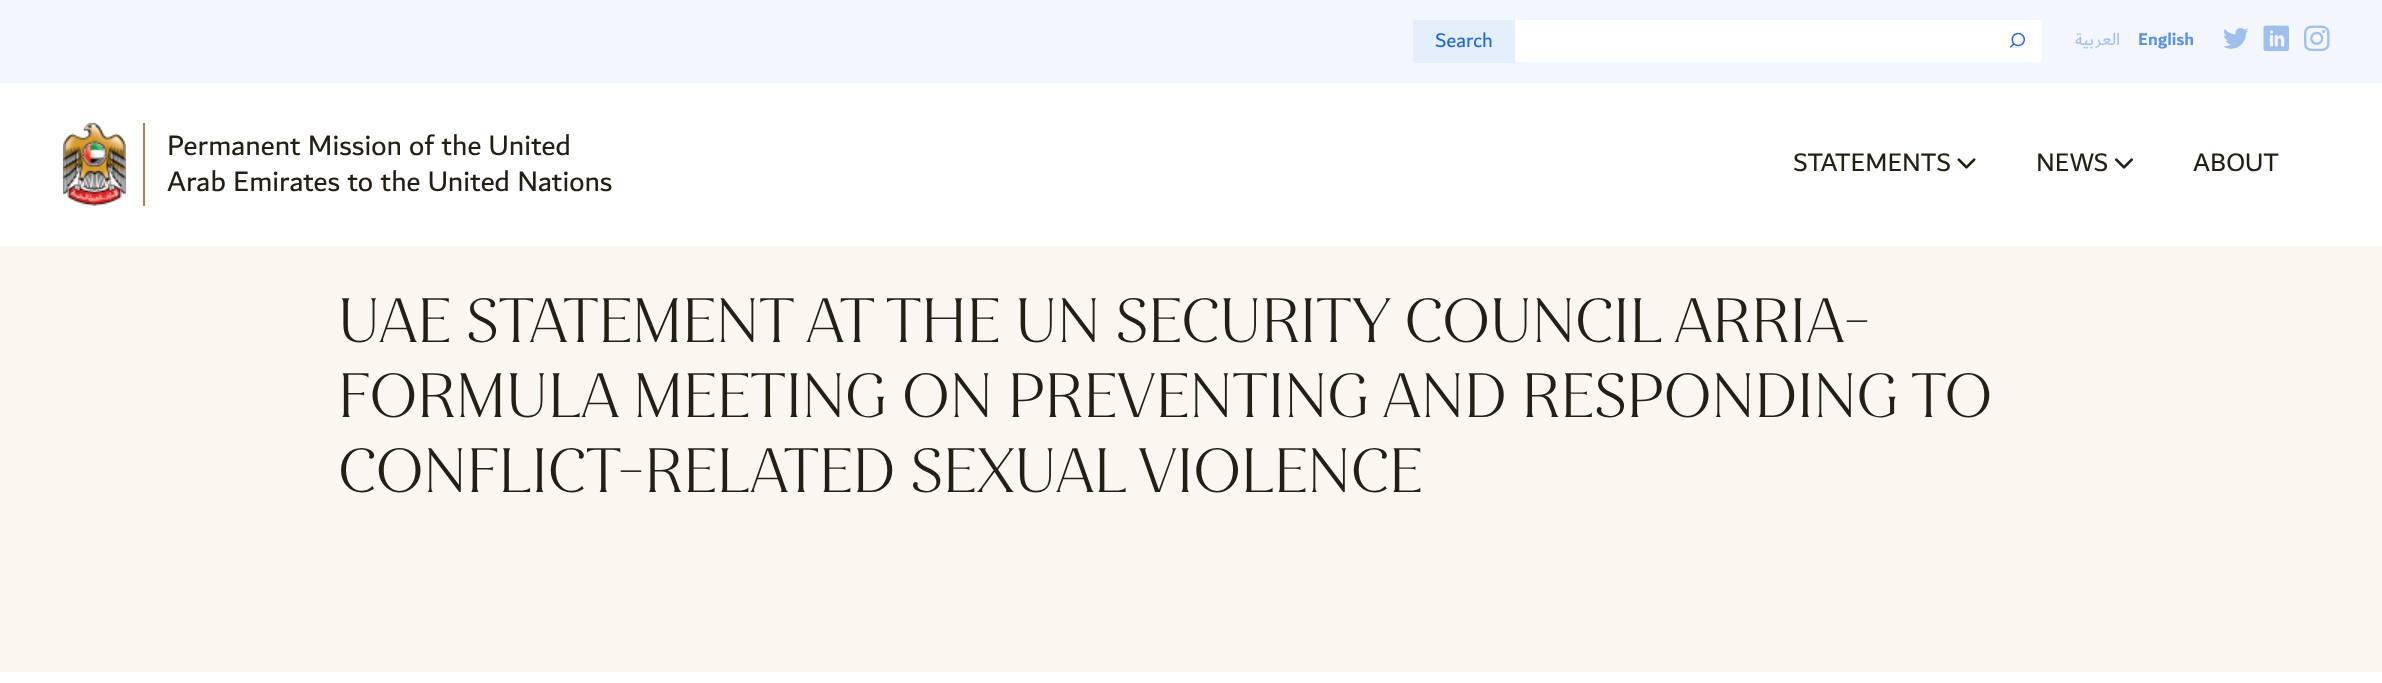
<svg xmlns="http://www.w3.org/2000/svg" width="2382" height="683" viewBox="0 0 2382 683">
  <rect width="100%" height="100%" fill="#fff"/>
  <path d="M0 0h2382v83H0z" fill="#f2f6fd"/>
  <path d="M1416 20H1515V63H1416C1414.5 63 1413 61.5 1413 60V23C1413 21.5 1414.5 20 1416 20Z" fill="#e5eefb"/>
  <rect x="1515" y="20" width="527" height="42" rx="3" fill="#fff"/>
  <image x="2010" y="32" width="15" height="16" href="img/1.png"/>
  <image x="2223" y="28" width="26" height="21" href="img/2.png"/>
  <image x="2263" y="25" width="26" height="27" href="img/3.png"/>
  <image x="2304" y="25" width="26" height="27" href="img/4.png"/>
  <path d="M143 123h2v83H143z" fill="#a0875a"/>
  <image x="63" y="122" width="63" height="84" href="img/5.png"/>
  <image x="1957" y="158" width="19" height="11" href="img/6.png"/>
  <image x="2115" y="158" width="18" height="11" href="img/7.png"/>
  <path d="M0 246h2382v426H0z" fill="#faf7f0"/>
  <text x="1435" y="47" font-family="'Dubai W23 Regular'" font-size="21" fill="#2169d4">Search</text>
  <text x="2120" y="45" font-family="'Dubai W23 Regular'" font-size="18" direction="rtl" fill="#9fbfef">العربية</text>
  <text x="2138" y="45" font-family="'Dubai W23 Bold'" font-size="18" font-weight="bold" fill="#5c93e6">English</text>
  <g font-family="'Dubai W23 Regular'" font-size="30" fill="#241f14">
    <text x="167" y="155">Permanent Mission of the United</text>
    <text x="167" y="191">Arab Emirates to the United Nations</text>
  </g>
  <g font-family="'Dubai W23 Regular'" font-size="27" fill="#241f14">
    <text x="1793" y="171">STATEMENTS</text>
    <text x="2036" y="171">NEWS</text>
    <text x="2193" y="171">ABOUT</text>
  </g>
  <g font-family="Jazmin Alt" font-size="60" font-weight="300" fill="#241f14">
    <text x="338" y="342">UAE STATEMENT AT THE UN SECURITY COUNCIL ARRIA-</text>
    <text x="338" y="417">FORMULA MEETING ON PREVENTING AND RESPONDING TO</text>
    <text x="338" y="492">CONFLICT-RELATED SEXUAL VIOLENCE</text>
  </g>
</svg>
